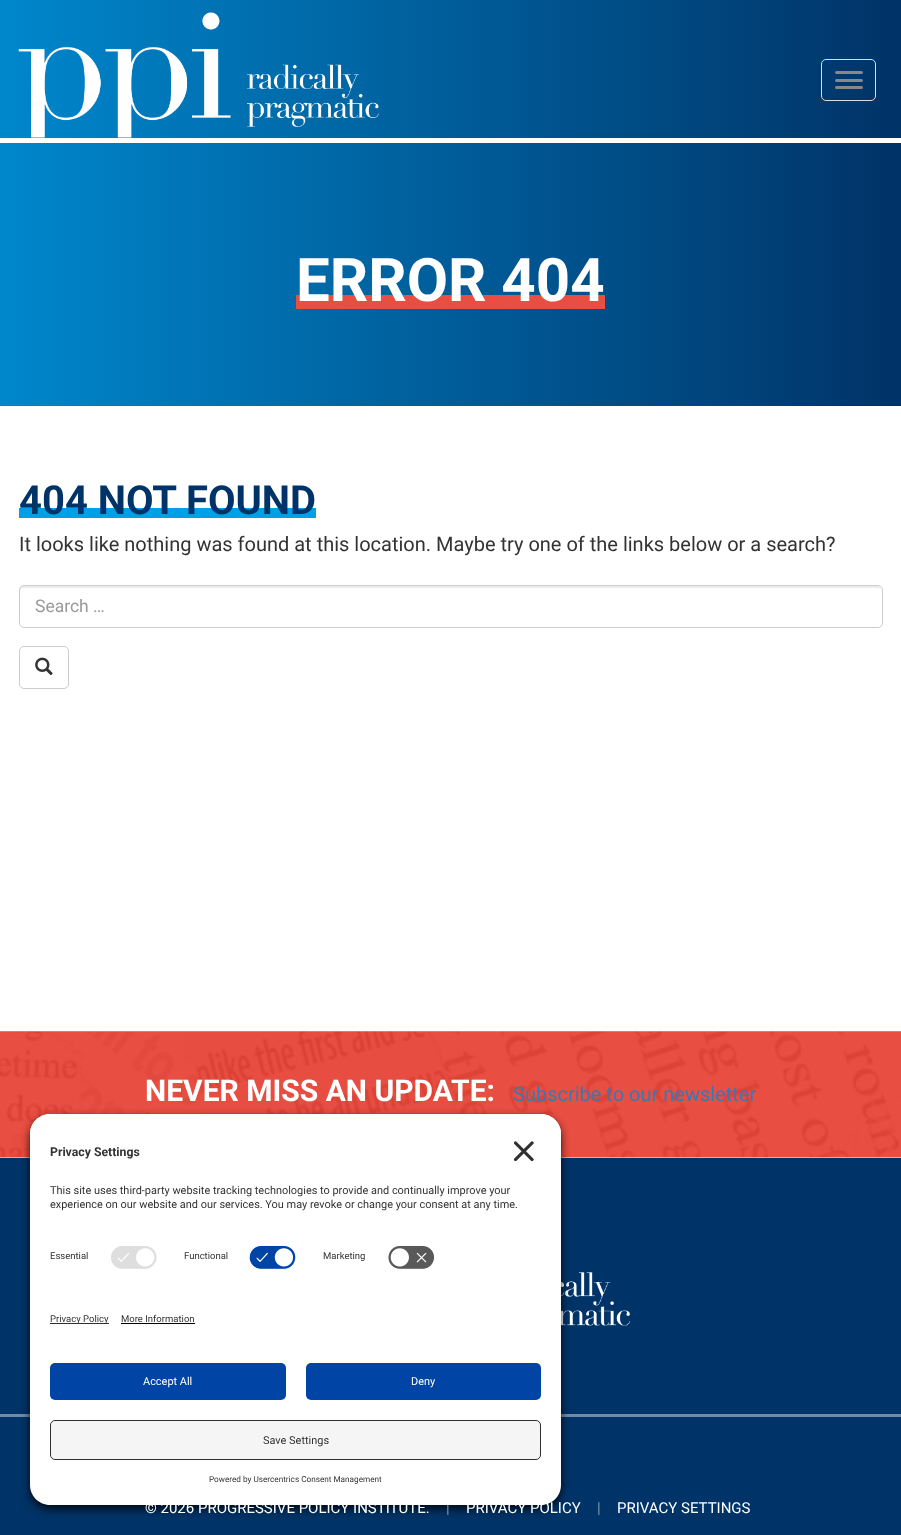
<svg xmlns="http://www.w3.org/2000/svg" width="901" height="1535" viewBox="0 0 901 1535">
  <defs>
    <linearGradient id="g1" gradientUnits="userSpaceOnUse" x1="901" y1="69" x2="0" y2="69"><stop offset="0" stop-color="#003367"/><stop offset="0.99" stop-color="#0086cb"/></linearGradient>
    <linearGradient id="g2" gradientUnits="userSpaceOnUse" x1="901" y1="274" x2="0" y2="274"><stop offset="0" stop-color="#003367"/><stop offset="0.99" stop-color="#0086cb"/></linearGradient>
  </defs>
  <rect width="100%" height="100%" fill="#fff"/>
  <path d="M0 0h901v138H0z" fill="url(#g1)"/>
  <image x="18" y="12" width="361" height="126" href="img/1.png"/>
  <rect x="821.5" y="59.5" width="54" height="41" rx="4.5" fill="none" stroke="#ddd"/>
  <rect x="835" y="71" width="28" height="3" rx="1.5" fill="#888"/>
  <rect x="835" y="79" width="28" height="3" rx="1.5" fill="#888"/>
  <rect x="835" y="86" width="28" height="3" rx="1.5" fill="#888"/>
  <path d="M0 143h901v263H0z" fill="url(#g2)"/>
  <path d="M296 295h309v14H296z" fill="#e84e41"/>
  <path d="M19 508h297v10H19z" fill="#009fe9"/>
  <path d="M24 588H878C880 588 881 589 881 591C881 588 880 586 877 586H24C21 586 20 588 20 591C20 589 22 588 24 588Z" fill="#ececec"/>
  <rect x="19.5" y="585.5" width="863" height="42" rx="4.5" fill="none" stroke="#ccc"/>
  <rect x="19.5" y="646.5" width="49" height="42" rx="4.5" fill="none" stroke="#ccc"/>
  <image x="35" y="657" width="18" height="19" href="img/2.png"/>
  <image x="0" y="1031" width="901" height="127" href="img/3.png"/>
  <path d="M0 1158h901v377H0z" fill="#003367"/>
  <image x="561" y="1272" width="69" height="54" href="img/4.png"/>
  <path d="M0 1414h901v3H0z" fill="#6e8ba9"/>
  <rect x="30" y="1118" width="531" height="391" rx="20" fill="#000000cc" filter="blur(4.5px)"/>
  <path d="M50 1114H541C552 1114 561 1123 561 1134V1291H30V1134C30 1123 39 1114 50 1114Z" fill="#fff"/>
  <path d="M50 1114H541C552 1114 561 1123 561 1134V1236H30V1134C30 1123 39 1114 50 1114Z" fill="#fff"/>
  <image x="514" y="1141" width="20" height="20" href="img/5.png"/>
  <image x="111" y="1246" width="46" height="23" href="img/6.png"/>
  <image x="249" y="1245" width="47" height="25" href="img/7.png"/>
  <image x="387" y="1245" width="48" height="25" href="img/8.png"/>
  <text x="296" y="301" font-family="Roboto" font-size="60" font-weight="bold" fill="#fff">ERROR 404</text>
  <text x="19" y="514" font-family="Roboto" font-size="40" font-weight="bold" fill="#003367">404 NOT FOUND</text>
  <text x="19" y="551" font-family="Roboto" font-size="20" fill="#333">It looks like nothing was found at this location. Maybe try one of the links below or a search?</text>
  <text x="35" y="612" font-family="Roboto" font-size="17.5" fill="#999">Search …</text>
  <text x="145" y="1101" font-family="Roboto" font-size="30" font-weight="bold" fill="#fff">NEVER MISS AN UPDATE:</text>
  <text x="513" y="1101" font-family="Roboto" font-size="20" fill="#337ab7">Subscribe to our newsletter</text>
  <text x="145" y="1513" font-family="Roboto" font-size="15" fill="#fff">© 2026 PROGRESSIVE POLICY INSTITUTE.</text>
  <text x="446" y="1513" font-family="Roboto" font-size="15" fill="#8099b3">|</text>
  <text x="466" y="1513" font-family="Roboto" font-size="15" fill="#fff">PRIVACY POLICY</text>
  <text x="597" y="1513" font-family="Roboto" font-size="15" fill="#8099b3">|</text>
  <text x="617" y="1513" font-family="Roboto" font-size="15" fill="#fff">PRIVACY SETTINGS</text>
  <text x="50" y="1156" font-family="Roboto" font-size="12.25" font-weight="bold" fill="#333">Privacy Settings</text>
  <g font-family="Roboto" font-size="10.95" fill="#333">
    <text x="50" y="1194">This site uses third-party website tracking technologies to provide and continually improve your</text>
    <text x="50" y="1208">experience on our website and our services. You may revoke or change your consent at any time.</text>
  </g>
  <g font-family="Roboto" font-size="9.5" fill="#333">
    <text x="50" y="1259">Essential</text>
    <text x="184" y="1259">Functional</text>
    <text x="323" y="1259">Marketing</text>
  </g>
  <path d="M30 1291H561V1485C561 1496 552 1505 541 1505H50C39 1505 30 1496 30 1485Z" fill="#fff"/>
  <path d="M50 1323h59v1H50z" fill="#303030"/>
  <g font-family="Roboto" font-size="9.5" fill="#333">
    <text x="50" y="1322">Privacy Policy</text>
    <text x="121" y="1322">More Information</text>
  </g>
  <path d="M121 1323h74v1H121z" fill="#000"/>
  <rect x="50" y="1363" width="236" height="37" rx="5" fill="#0045a5"/>
  <text x="143" y="1385" font-family="Roboto" font-size="10.95" fill="#fff">Accept All</text>
  <rect x="306" y="1363" width="235" height="37" rx="5" fill="#0045a5"/>
  <text x="411" y="1385" font-family="Roboto" font-size="10.95" fill="#fff">Deny</text>
  <rect x="50.5" y="1420.5" width="490" height="39" rx="4.5" fill="#f5f5f5" stroke="#303030"/>
  <text x="263" y="1444" font-family="Roboto" font-size="10.95" fill="#333">Save Settings</text>
  <text x="209" y="1482" font-family="Roboto" font-size="8.2" fill="#333">Powered by Usercentrics Consent Management</text>
</svg>
